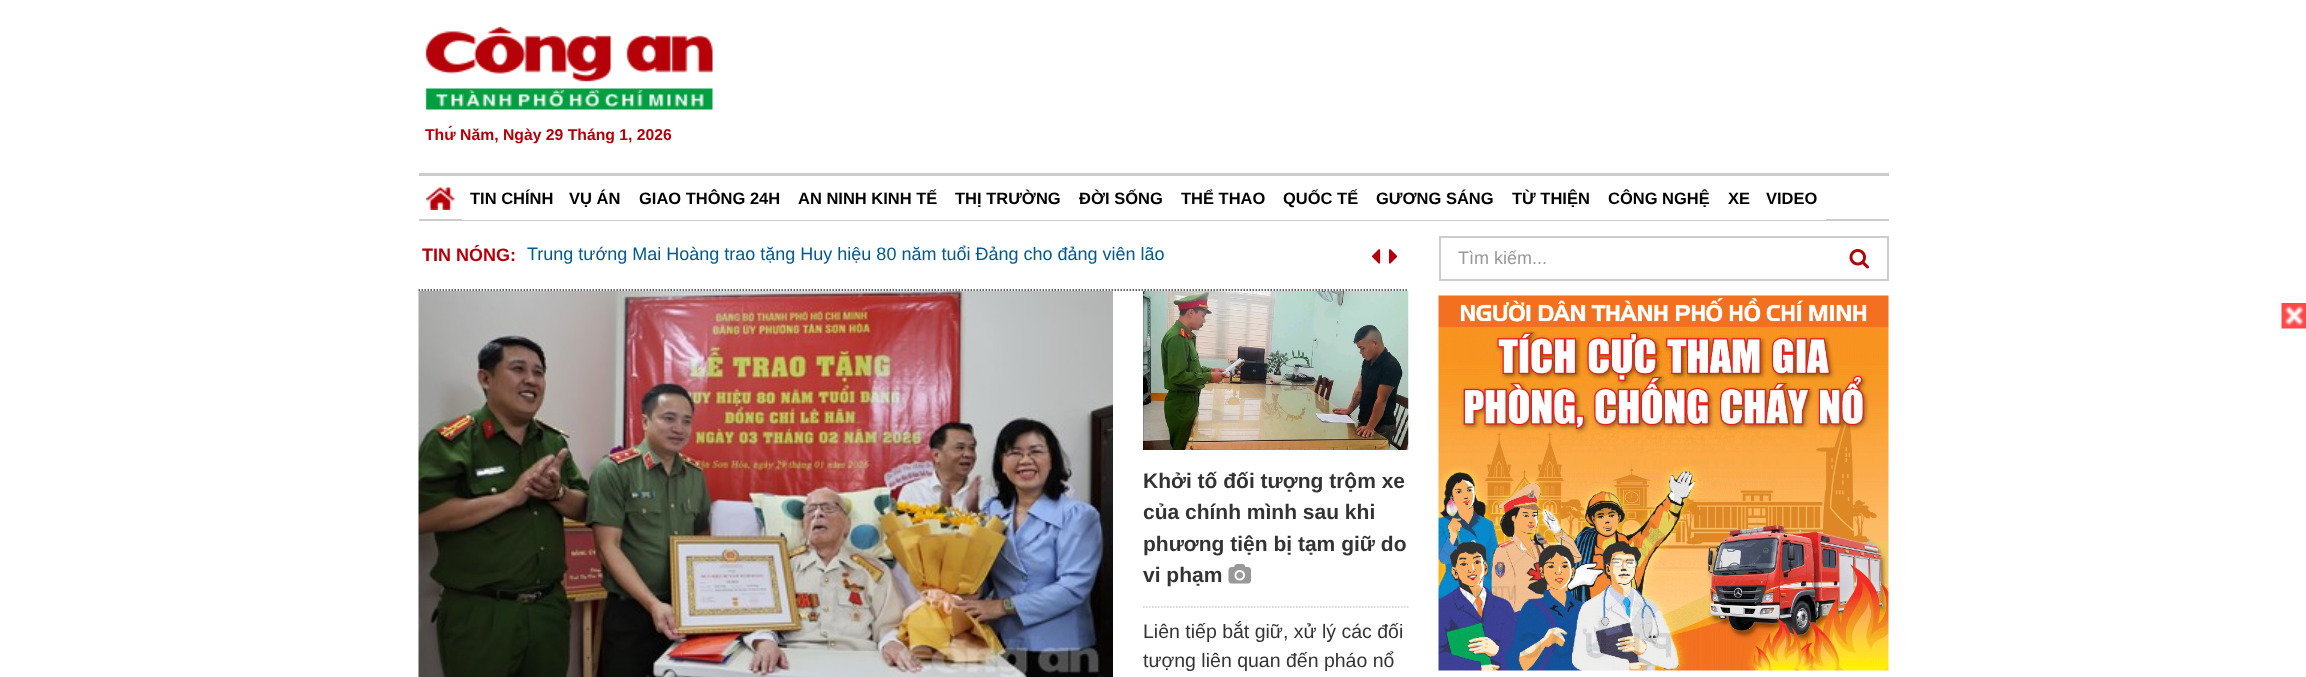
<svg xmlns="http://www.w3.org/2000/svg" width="2306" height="677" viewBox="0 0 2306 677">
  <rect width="100%" height="100%" fill="#fff"/>
  <image x="425" y="26" width="288" height="84" href="img/1.png"/>
  <image x="426" y="187" width="29" height="23" href="img/2.png"/>
  <path d="M419 173h1470v3H419z" fill="#ccc"/>
  <path d="M419 219h1470v2H419z" fill="#ccc"/>
  <path d="M462 219h1364v1H462z" fill="#fff"/>
  <path d="M418.5 290H1408.5" fill="none" stroke="#2f2f2f" stroke-width="1.5" stroke-dasharray="1.5 1.5"/>
  <image x="1372" y="249" width="9" height="15" href="img/3.png"/>
  <image x="1389" y="249" width="9" height="15" href="img/4.png"/>
  <image x="418" y="291" width="695" height="386" href="img/5.png"/>
  <image x="1143" y="291" width="266" height="159" href="img/6.png"/>
  <image x="1228" y="564" width="23" height="20" href="img/7.png"/>
  <path d="M1143 607H1408.5" fill="none" stroke="#ccc" stroke-width="1.5" stroke-dasharray="1.5 1.5"/>
  <path d="M1439 236h450v2H1439z" fill="#ccc"/>
  <path d="M1887 236h2v45H1887z" fill="#ccc"/>
  <path d="M1439 279h450v2H1439z" fill="#ccc"/>
  <image x="1849" y="249" width="20" height="20" href="img/8.png"/>
  <path d="M1439 236h2v45H1439z" fill="#ccc"/>
  <image x="1438" y="295" width="451" height="376" href="img/9.png"/>
  <image x="2281" y="303" width="25" height="26" href="img/10.png"/>
  <text x="425" y="140" font-family="Liberation Sans" font-size="15.75" font-weight="bold" fill="#b50009">Thứ Năm, Ngày 29 Tháng 1, 2026</text>
  <g font-family="Liberation Sans" font-size="16.5" font-weight="bold" fill="#000">
    <text x="470" y="204">TIN CHÍNH</text>
    <text x="569" y="204">VỤ ÁN</text>
    <text x="639" y="204">GIAO THÔNG 24H</text>
    <text x="798" y="204">AN NINH KINH TẾ</text>
    <text x="955" y="204">THỊ TRƯỜNG</text>
    <text x="1079" y="204">ĐỜI SỐNG</text>
    <text x="1181" y="204">THỂ THAO</text>
    <text x="1283" y="204">QUỐC TẾ</text>
    <text x="1376" y="204">GƯƠNG SÁNG</text>
    <text x="1512" y="204">TỪ THIỆN</text>
    <text x="1608" y="204">CÔNG NGHỆ</text>
    <text x="1728" y="204">XE</text>
    <text x="1766" y="204">VIDEO</text>
  </g>
  <text x="422" y="261" font-family="Liberation Sans" font-size="18" font-weight="bold" fill="#b50009">TIN NÓNG:</text>
  <text x="527" y="260" font-family="Liberation Sans" font-size="18" fill="#015991">Trung tướng Mai Hoàng trao tặng Huy hiệu 80 năm tuổi Đảng cho đảng viên lão</text>
  <g font-family="Liberation Sans" font-size="21" font-weight="bold" fill="#333">
    <text x="1143" y="488">Khởi tố đối tượng trộm xe</text>
    <text x="1143" y="519">của chính mình sau khi</text>
    <text x="1143" y="551">phương tiện bị tạm giữ do</text>
    <text x="1143" y="582">vi phạm</text>
  </g>
  <g font-family="Liberation Sans" font-size="19.5" fill="#333">
    <text x="1143" y="638">Liên tiếp bắt giữ, xử lý các đối</text>
    <text x="1143" y="667">tượng liên quan đến pháo nổ</text>
  </g>
  <text x="1458" y="264" font-family="Liberation Sans" font-size="18" fill="#999">Tìm kiếm...</text>
</svg>
